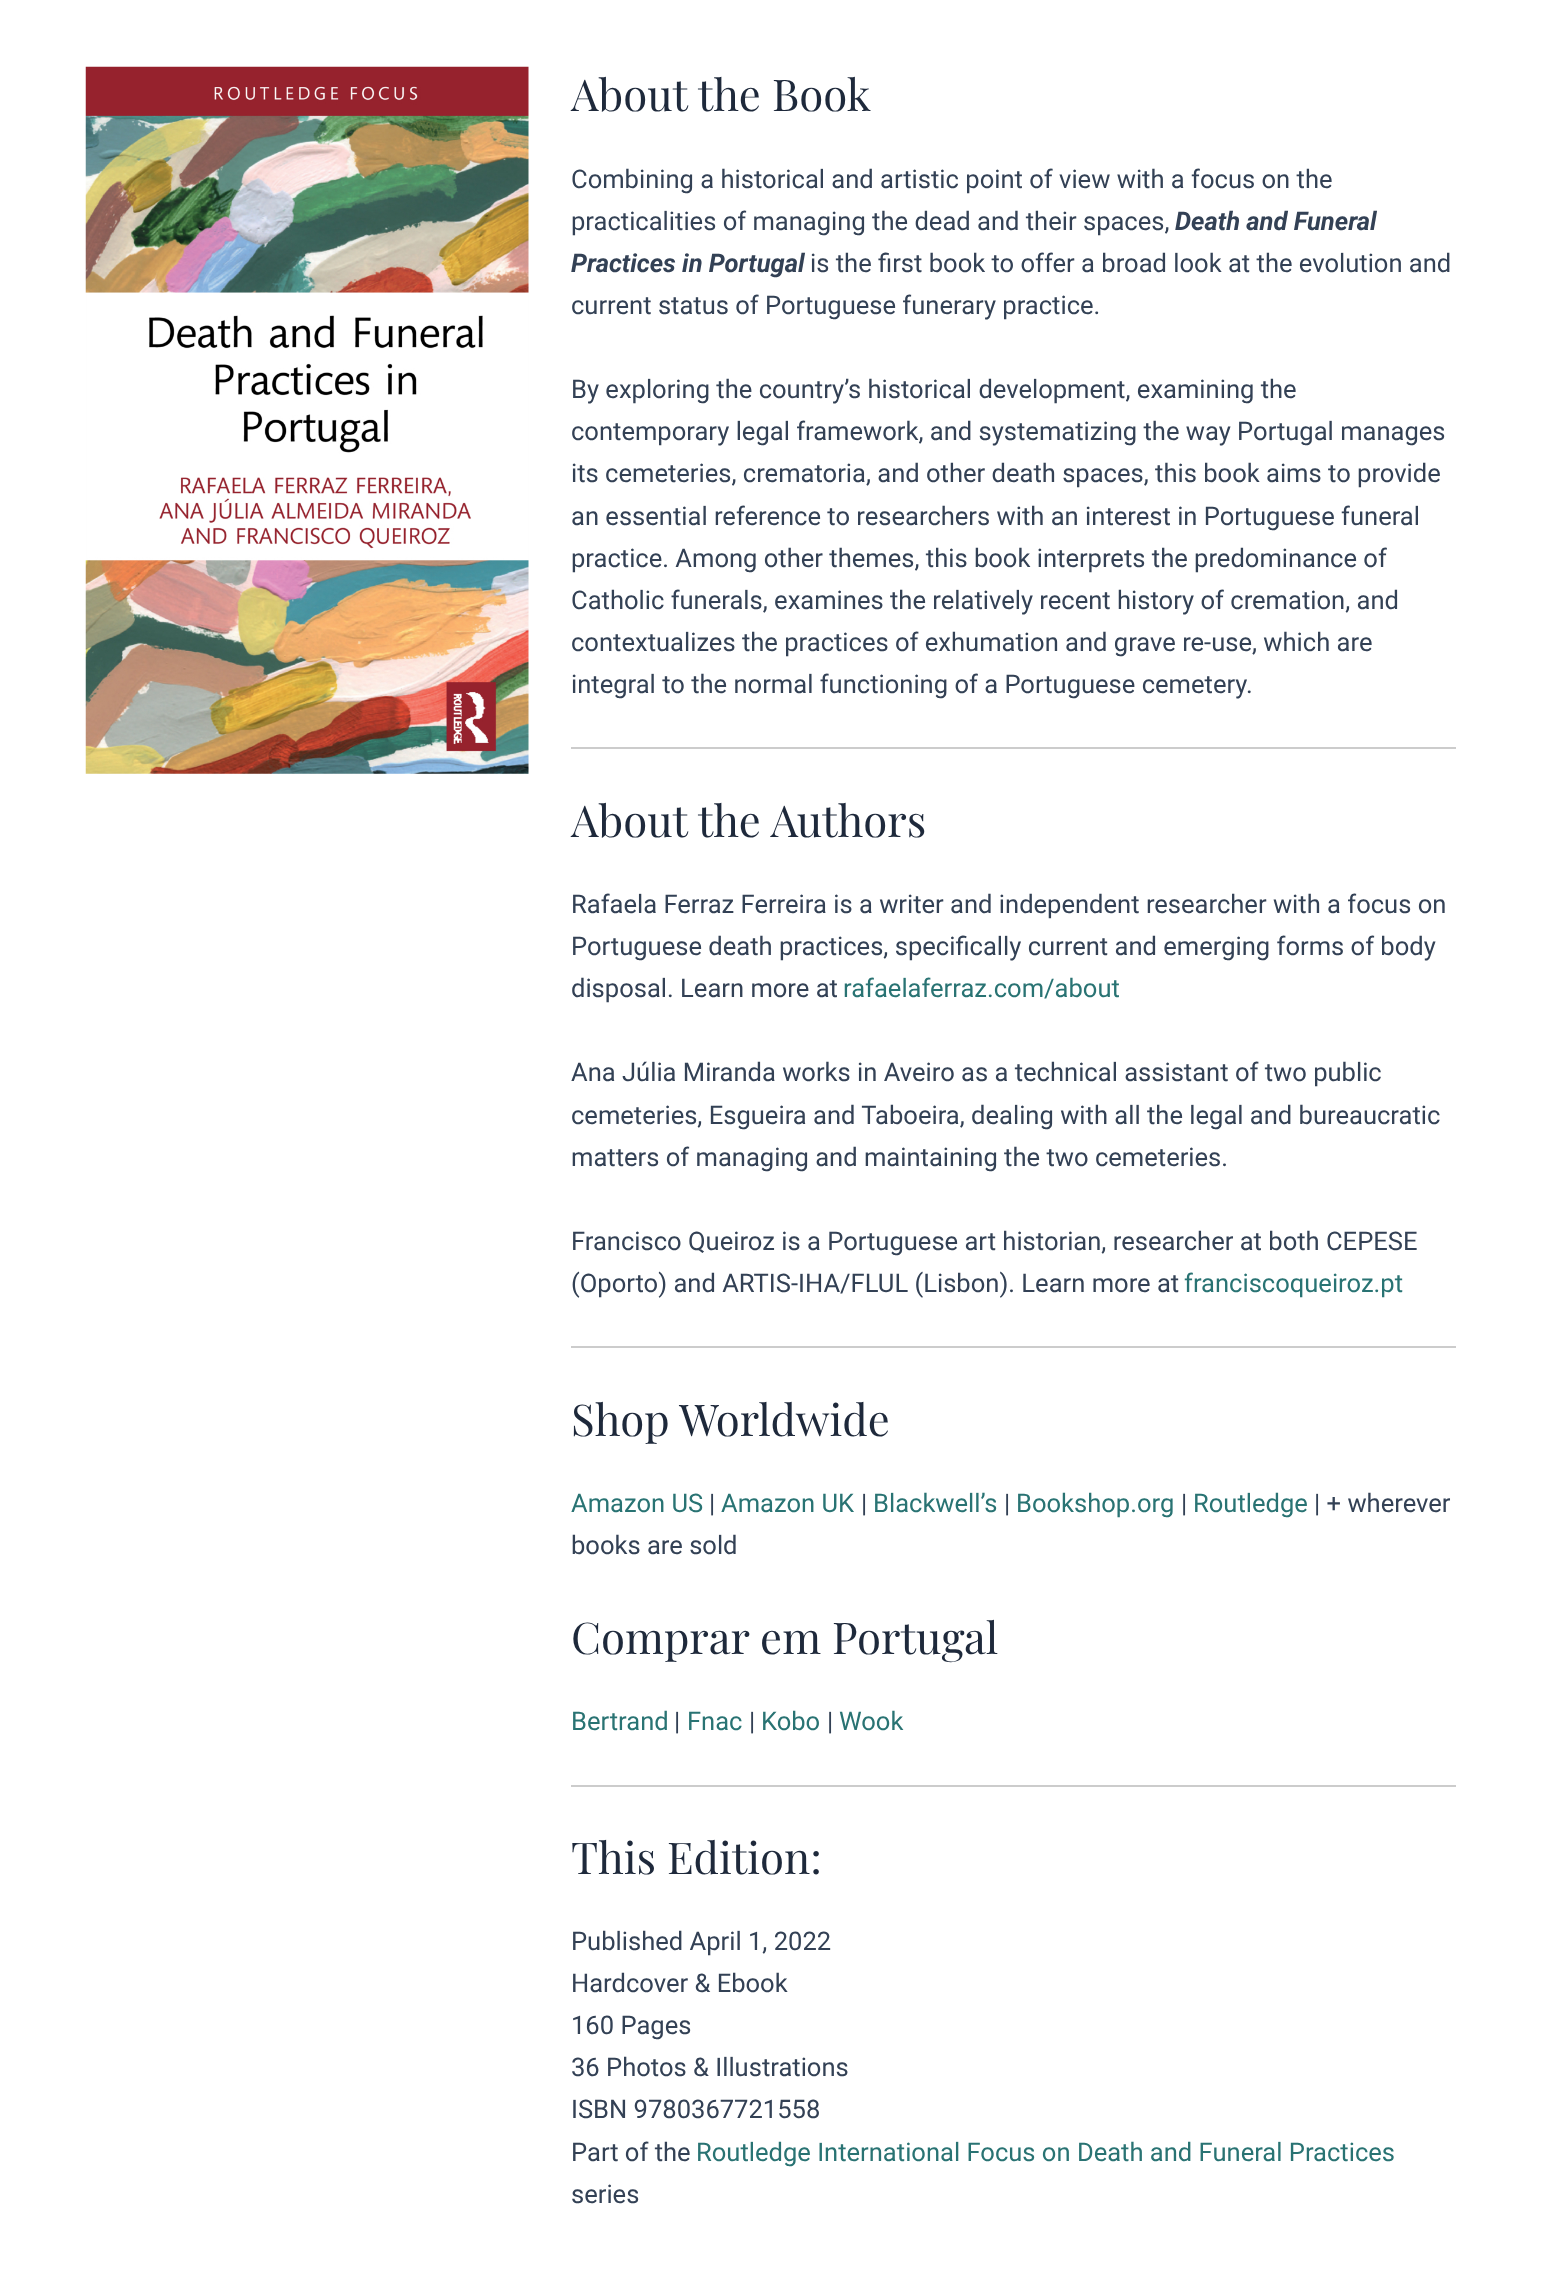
<svg xmlns="http://www.w3.org/2000/svg" width="1541" height="2274" viewBox="0 0 1541 2274">
  <rect width="100%" height="100%" fill="#fff"/>
  <image x="85" y="66" width="444" height="708" href="img/1.png"/>
  <path d="M571 747h885v2H571z" fill="#ccc"/>
  <path d="M571 1346h885v2H571z" fill="#ccc"/>
  <path d="M571 1785h885v2H571z" fill="#ccc"/>
  <text x="571" y="111" font-family="Playfair Display" font-size="43.75" fill="#1e293b">About the Book</text>
  <g font-family="Roboto" font-size="25.55" fill="#334155">
    <text x="571" y="188">Combining a historical and artistic point of view with a focus on the</text>
    <text x="571" y="230">practicalities of managing the dead and their spaces,</text>
  </g>
  <g font-family="Roboto" font-size="25.55" font-weight="bold" font-style="italic" fill="#334155">
    <text x="1175" y="230">Death and Funeral</text>
    <text x="571" y="272">Practices in Portugal</text>
  </g>
  <g font-family="Roboto" font-size="25.55" fill="#334155">
    <text x="810" y="272">is the first book to offer a broad look at the evolution and</text>
    <text x="571" y="314">current status of Portuguese funerary practice.</text>
    <text x="571" y="398">By exploring the country’s historical development, examining the</text>
    <text x="571" y="440">contemporary legal framework, and systematizing the way Portugal manages</text>
    <text x="571" y="482">its cemeteries, crematoria, and other death spaces, this book aims to provide</text>
    <text x="571" y="525">an essential reference to researchers with an interest in Portuguese funeral</text>
    <text x="571" y="567">practice. Among other themes, this book interprets the predominance of</text>
    <text x="571" y="609">Catholic funerals, examines the relatively recent history of cremation, and</text>
    <text x="571" y="651">contextualizes the practices of exhumation and grave re-use, which are</text>
    <text x="571" y="693">integral to the normal functioning of a Portuguese cemetery.</text>
  </g>
  <text x="571" y="837" font-family="Playfair Display" font-size="43.75" fill="#1e293b">About the Authors</text>
  <g font-family="Roboto" font-size="25.55" fill="#334155">
    <text x="571" y="913">Rafaela Ferraz Ferreira is a writer and independent researcher with a focus on</text>
    <text x="571" y="955">Portuguese death practices, specifically current and emerging forms of body</text>
    <text x="571" y="997">disposal. Learn more at</text>
  </g>
  <text x="843" y="997" font-family="Roboto" font-size="25.55" fill="#297373">rafaelaferraz.com/about</text>
  <g font-family="Roboto" font-size="25.55" fill="#334155">
    <text x="571" y="1081">Ana Júlia Miranda works in Aveiro as a technical assistant of two public</text>
    <text x="571" y="1124">cemeteries, Esgueira and Taboeira, dealing with all the legal and bureaucratic</text>
    <text x="571" y="1166">matters of managing and maintaining the two cemeteries.</text>
    <text x="571" y="1250">Francisco Queiroz is a Portuguese art historian, researcher at both CEPESE</text>
    <text x="571" y="1292">(Oporto) and ARTIS-IHA/FLUL (Lisbon). Learn more at</text>
  </g>
  <text x="1184" y="1292" font-family="Roboto" font-size="25.55" fill="#297373">franciscoqueiroz.pt</text>
  <text x="571" y="1436" font-family="Playfair Display" font-size="43.75" fill="#1e293b">Shop Worldwide</text>
  <text x="571" y="1512" font-family="Roboto" font-size="25.55" fill="#297373">Amazon US</text>
  <text x="709" y="1512" font-family="Roboto" font-size="25.55" fill="#334155">|</text>
  <text x="721" y="1512" font-family="Roboto" font-size="25.55" fill="#297373">Amazon UK</text>
  <text x="861" y="1512" font-family="Roboto" font-size="25.55" fill="#334155">|</text>
  <text x="873" y="1512" font-family="Roboto" font-size="25.55" fill="#297373">Blackwell’s</text>
  <text x="1004" y="1512" font-family="Roboto" font-size="25.55" fill="#334155">|</text>
  <text x="1016" y="1512" font-family="Roboto" font-size="25.55" fill="#297373">Bookshop.org</text>
  <text x="1181" y="1512" font-family="Roboto" font-size="25.55" fill="#334155">|</text>
  <text x="1193" y="1512" font-family="Roboto" font-size="25.55" fill="#297373">Routledge</text>
  <g font-family="Roboto" font-size="25.55" fill="#334155">
    <text x="1314" y="1512">| + wherever</text>
    <text x="571" y="1554">books are sold</text>
  </g>
  <text x="571" y="1654" font-family="Playfair Display" font-size="43.75" fill="#1e293b">Comprar em Portugal</text>
  <text x="571" y="1730" font-family="Roboto" font-size="25.55" fill="#297373">Bertrand</text>
  <text x="674" y="1730" font-family="Roboto" font-size="25.55" fill="#334155">|</text>
  <text x="687" y="1730" font-family="Roboto" font-size="25.55" fill="#297373">Fnac</text>
  <text x="749" y="1730" font-family="Roboto" font-size="25.55" fill="#334155">|</text>
  <text x="761" y="1730" font-family="Roboto" font-size="25.55" fill="#297373">Kobo</text>
  <text x="827" y="1730" font-family="Roboto" font-size="25.55" fill="#334155">|</text>
  <text x="839" y="1730" font-family="Roboto" font-size="25.55" fill="#297373">Wook</text>
  <text x="571" y="1874" font-family="Playfair Display" font-size="43.75" fill="#1e293b">This Edition:</text>
  <g font-family="Roboto" font-size="25.55" fill="#334155">
    <text x="571" y="1950">Published April 1, 2022</text>
    <text x="571" y="1992">Hardcover &amp; Ebook</text>
    <text x="571" y="2034">160 Pages</text>
    <text x="571" y="2076">36 Photos &amp; Illustrations</text>
    <text x="571" y="2118">ISBN 9780367721558</text>
    <text x="571" y="2161">Part of the</text>
  </g>
  <text x="696" y="2161" font-family="Roboto" font-size="25.55" fill="#297373">Routledge International Focus on Death and Funeral Practices</text>
  <text x="571" y="2203" font-family="Roboto" font-size="25.55" fill="#334155">series</text>
</svg>
